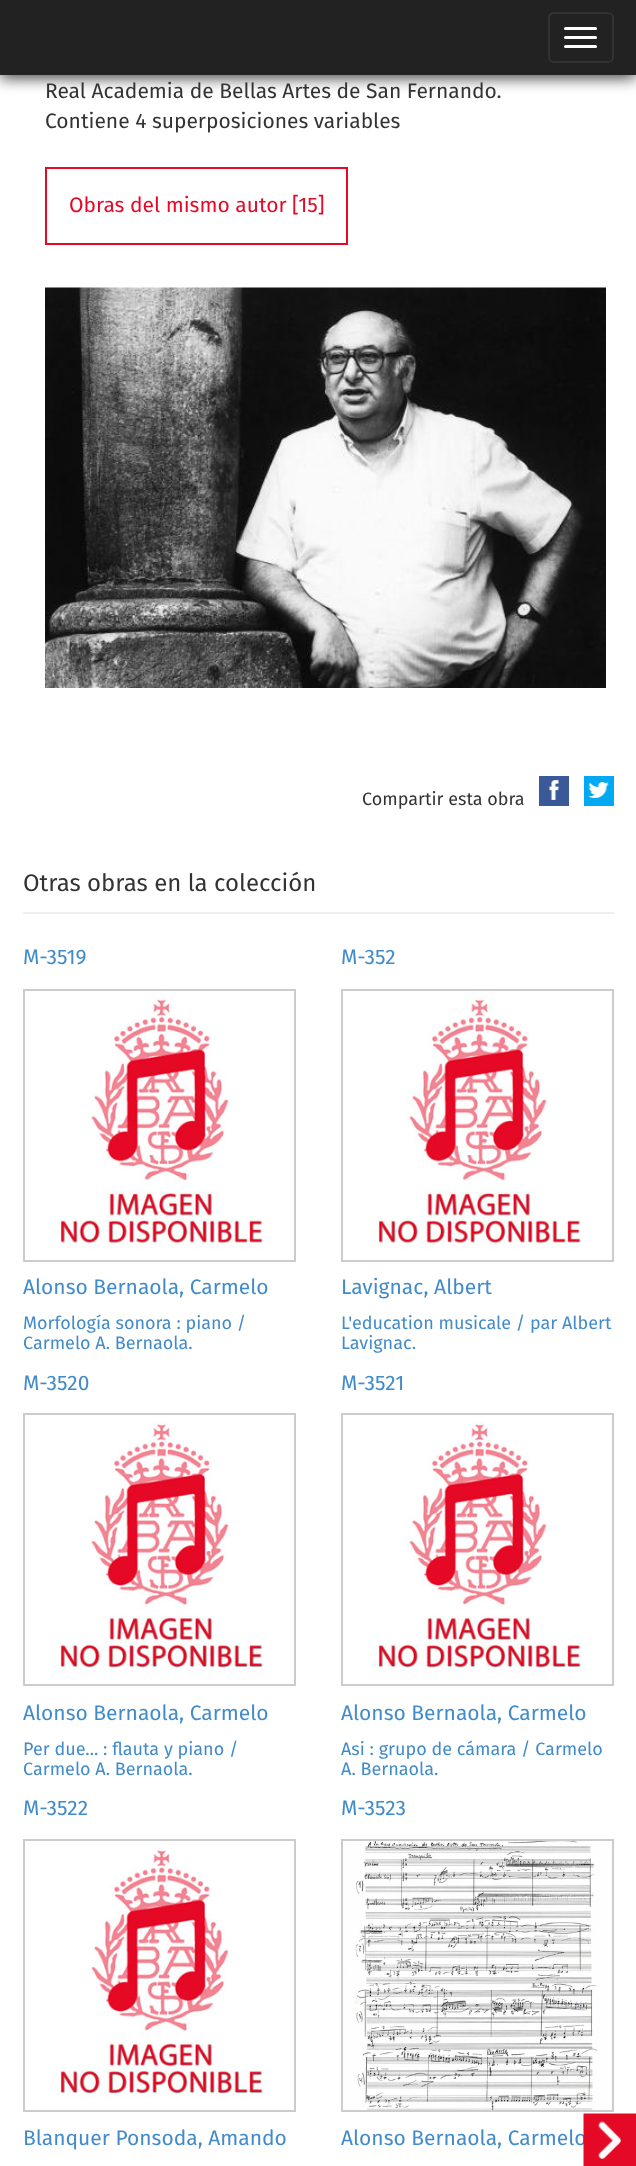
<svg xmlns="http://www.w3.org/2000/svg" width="636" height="2166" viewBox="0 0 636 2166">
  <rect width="100%" height="100%" fill="#fff"/>
  <path d="M0 3h636v75H0z" fill="#000000bf" filter="blur(7.5px)"/>
  <path d="M0 0h636v75H0z" fill="#222"/>
  <rect x="549" y="13" width="64" height="49" rx="5" fill="none" stroke="#333" stroke-width="2"/>
  <rect x="564" y="27" width="33" height="3" rx="1.5" fill="#fff"/>
  <rect x="564" y="36" width="33" height="3" rx="1.5" fill="#fff"/>
  <rect x="564" y="45" width="33" height="3" rx="1.5" fill="#fff"/>
  <path d="M46 168h301v76H46z" fill="none" stroke="#e50926" stroke-width="2"/>
  <image x="45" y="287" width="561" height="401" href="img/1.png"/>
  <path d="M539 776h30v30H539z" fill="#3b5998"/>
  <image x="549" y="780" width="10" height="20" href="img/2.png"/>
  <path d="M584 776h30v30H584z" fill="#00a9f1"/>
  <image x="588" y="782" width="21" height="16" href="img/3.png"/>
  <path d="M23 912h591v2H23z" fill="#eee"/>
  <image x="60" y="997" width="203" height="252" href="img/4.png"/>
  <path d="M24 990h271v271H24z" fill="none" stroke="#ccc" stroke-width="2"/>
  <image x="378" y="997" width="203" height="252" href="img/4.png"/>
  <path d="M342 990h271v271H342z" fill="none" stroke="#ccc" stroke-width="2"/>
  <image x="60" y="1421" width="203" height="252" href="img/5.png"/>
  <path d="M24 1414h271v271H24z" fill="none" stroke="#ccc" stroke-width="2"/>
  <image x="378" y="1421" width="203" height="252" href="img/5.png"/>
  <path d="M342 1414h271v271H342z" fill="none" stroke="#ccc" stroke-width="2"/>
  <image x="60" y="1847" width="203" height="252" href="img/6.png"/>
  <path d="M24 1840h271v271H24z" fill="none" stroke="#ccc" stroke-width="2"/>
  <image x="343" y="1841" width="269" height="269" href="img/7.png"/>
  <path d="M342 1840h271v271H342z" fill="none" stroke="#ccc" stroke-width="2"/>
  <g font-family="Fira Sans" font-size="21" fill="#333">
    <text x="45" y="98">Real Academia de Bellas Artes de San Fernando.</text>
    <text x="45" y="128">Contiene 4 superposiciones variables</text>
  </g>
  <text x="69" y="212" font-family="Fira Sans" font-size="21" fill="#e50926">Obras del mismo autor [15]</text>
  <text x="362" y="805" font-family="Fira Sans" font-size="18" fill="#333">Compartir esta obra</text>
  <text x="23" y="891" font-family="Fira Sans" font-size="24" fill="#333">Otras obras en la colección</text>
  <g font-family="Fira Sans" font-size="21" fill="#428bca">
    <text x="23" y="964">M-3519</text>
    <text x="23" y="1294">Alonso Bernaola, Carmelo</text>
  </g>
  <g font-family="Fira Sans" font-size="18" fill="#428bca">
    <text x="23" y="1329">Morfología sonora : piano /</text>
    <text x="23" y="1349">Carmelo A. Bernaola.</text>
  </g>
  <g font-family="Fira Sans" font-size="21" fill="#428bca">
    <text x="341" y="964">M-352</text>
    <text x="341" y="1294">Lavignac, Albert</text>
  </g>
  <g font-family="Fira Sans" font-size="18" fill="#428bca">
    <text x="341" y="1329">L'education musicale / par Albert</text>
    <text x="341" y="1349">Lavignac.</text>
  </g>
  <g font-family="Fira Sans" font-size="21" fill="#428bca">
    <text x="23" y="1390">M-3520</text>
    <text x="23" y="1720">Alonso Bernaola, Carmelo</text>
  </g>
  <g font-family="Fira Sans" font-size="18" fill="#428bca">
    <text x="23" y="1755">Per due... : flauta y piano /</text>
    <text x="23" y="1775">Carmelo A. Bernaola.</text>
  </g>
  <g font-family="Fira Sans" font-size="21" fill="#428bca">
    <text x="341" y="1390">M-3521</text>
    <text x="341" y="1720">Alonso Bernaola, Carmelo</text>
  </g>
  <g font-family="Fira Sans" font-size="18" fill="#428bca">
    <text x="341" y="1755">Asi : grupo de cámara / Carmelo</text>
    <text x="341" y="1775">A. Bernaola.</text>
  </g>
  <g font-family="Fira Sans" font-size="21" fill="#428bca">
    <text x="23" y="1815">M-3522</text>
    <text x="23" y="2145">Blanquer Ponsoda, Amando</text>
    <text x="341" y="1815">M-3523</text>
    <text x="341" y="2145">Alonso Bernaola, Carmelo</text>
  </g>
  <image x="583" y="2113" width="53" height="53" href="img/8.png"/>
</svg>
